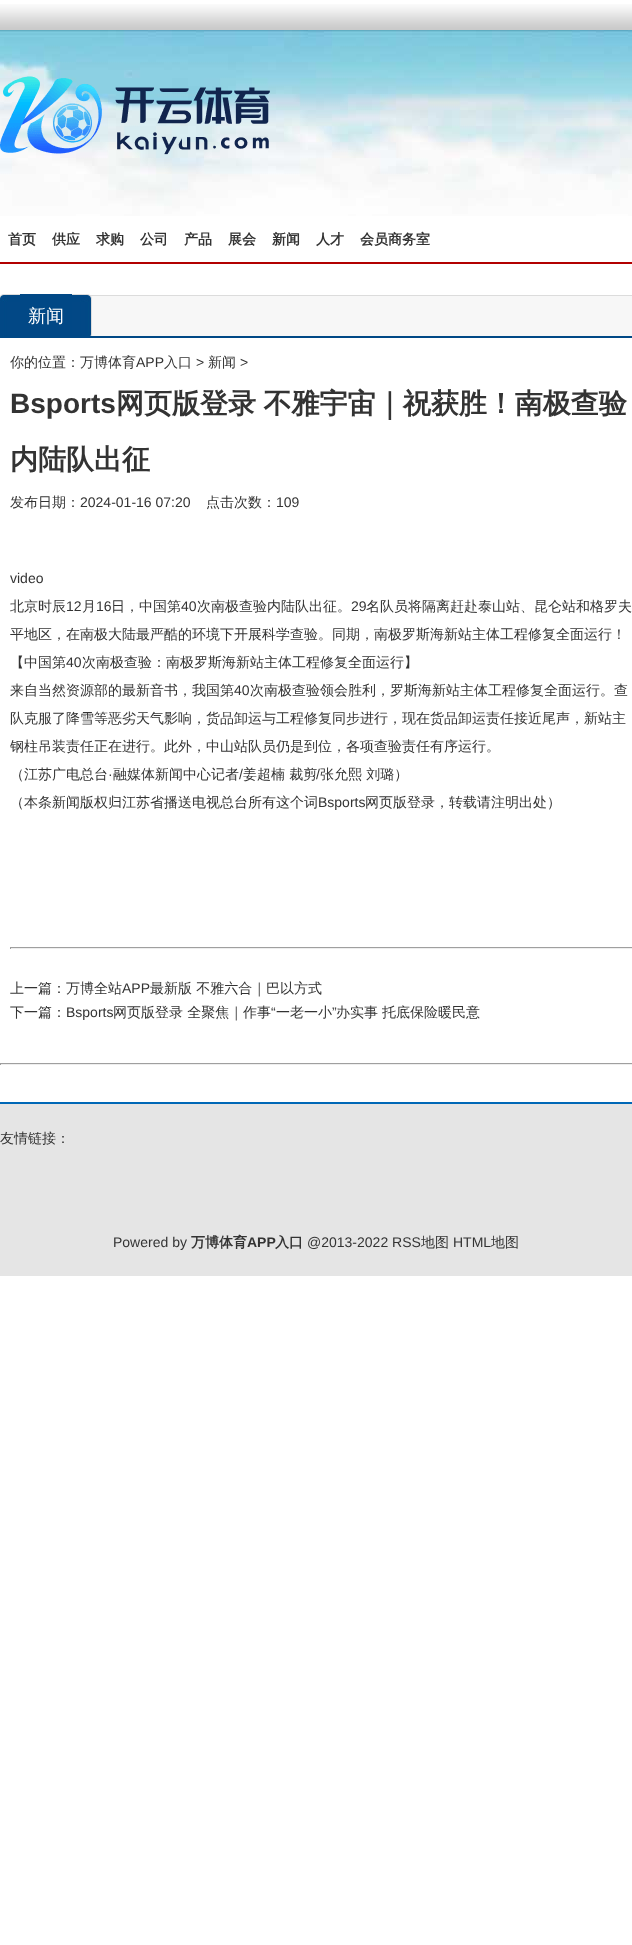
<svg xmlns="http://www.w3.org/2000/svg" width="632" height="1945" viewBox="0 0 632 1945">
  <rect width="100%" height="100%" fill="#fff"/>
  <image x="0" y="30" width="632" height="186" href="img/1.png"/>
  <image x="0" y="4" width="632" height="26" href="img/2.png"/>
  <image x="0" y="76" width="270" height="79" href="img/3.png"/>
  <path d="M0 262h632v2H0z" fill="#b20000"/>
  <image x="0" y="295" width="632" height="43" href="img/4.png"/>
  <image x="0" y="294" width="20" height="42" href="img/5.png"/>
  <path d="M20 294h52v42H20z" fill="#014886"/>
  <image x="72" y="294" width="20" height="42" href="img/6.png"/>
  <path d="M10 947h622v1H10z" fill="#9f9f9f"/>
  <path d="M10 948h622v1H10z" fill="#eee"/>
  <path d="M10 947h1v2H10z" fill="#9f9f9f"/>
  <path d="M0 1063h632v1H0z" fill="#9f9f9f"/>
  <path d="M0 1064h632v1H0z" fill="#eee"/>
  <path d="M0 1063h1v2H0z" fill="#9f9f9f"/>
  <path d="M0 1104h632v172H0z" fill="#e5e5e5"/>
  <path d="M0 1102h632v2H0z" fill="#0068b7"/>
  <g font-family="WenQuanYi Zen Hei" font-size="14" font-weight="bold" fill="#333">
    <text x="8" y="244">首页</text>
    <text x="52" y="244">供应</text>
    <text x="96" y="244">求购</text>
    <text x="140" y="244">公司</text>
    <text x="184" y="244">产品</text>
    <text x="228" y="244">展会</text>
    <text x="272" y="244">新闻</text>
    <text x="316" y="244">人才</text>
    <text x="360" y="244">会员商务室</text>
  </g>
  <text x="28" y="322" font-family="WenQuanYi Zen Hei" font-size="18" font-weight="500" fill="#fff">新闻</text>
  <text x="10" y="367" font-family="WenQuanYi Zen Hei" font-size="14" font-weight="500" fill="#333">你的位置：万博体育</text>
  <text x="136" y="367" font-family="Liberation Sans" font-size="14" fill="#333">APP</text>
  <text x="164" y="367" font-family="WenQuanYi Zen Hei" font-size="14" font-weight="500" fill="#333">入口</text>
  <text x="196" y="367" font-family="Liberation Sans" font-size="14" fill="#333">&gt;</text>
  <text x="208" y="367" font-family="WenQuanYi Zen Hei" font-size="14" font-weight="500" fill="#333">新闻</text>
  <text x="240" y="367" font-family="Liberation Sans" font-size="14" fill="#333">&gt;</text>
  <text x="10" y="413" font-family="Liberation Sans" font-size="28" font-weight="bold" fill="#333">Bsports</text>
  <g font-family="WenQuanYi Zen Hei" font-size="28" font-weight="bold" fill="#333">
    <text x="116" y="413" word-spacing="-1">网页版登录 不雅宇宙｜祝获胜！南极查验</text>
    <text x="10" y="469">内陆队出征</text>
  </g>
  <text x="10" y="507" font-family="WenQuanYi Zen Hei" font-size="14" font-weight="500" fill="#333">发布日期：</text>
  <text x="80" y="507" font-family="Liberation Sans" font-size="14" fill="#333">2024-01-16 07:20</text>
  <text x="206" y="507" font-family="WenQuanYi Zen Hei" font-size="14" font-weight="500" fill="#333">点击次数：</text>
  <g font-family="Liberation Sans" font-size="14" fill="#333">
    <text x="276" y="507">109</text>
    <text x="10" y="583">video</text>
  </g>
  <text x="10" y="611" font-family="WenQuanYi Zen Hei" font-size="14" font-weight="500" fill="#333">北京时辰</text>
  <text x="66" y="611" font-family="Liberation Sans" font-size="14" fill="#333">12</text>
  <text x="82" y="611" font-family="WenQuanYi Zen Hei" font-size="14" font-weight="500" fill="#333">月</text>
  <text x="96" y="611" font-family="Liberation Sans" font-size="14" fill="#333">16</text>
  <text x="111" y="611" font-family="WenQuanYi Zen Hei" font-size="14" font-weight="500" fill="#333">日，中国第</text>
  <text x="181" y="611" font-family="Liberation Sans" font-size="14" fill="#333">40</text>
  <text x="197" y="611" font-family="WenQuanYi Zen Hei" font-size="14" font-weight="500" fill="#333">次南极查验内陆队出征。</text>
  <text x="351" y="611" font-family="Liberation Sans" font-size="14" fill="#333">29</text>
  <g font-family="WenQuanYi Zen Hei" font-size="14" font-weight="500" fill="#333">
    <text x="366" y="611">名队员将隔离赶赴泰山站、昆仑站和格罗夫</text>
    <text x="10" y="639">平地区，在南极大陆最严酷的环境下开展科学查验。同期，南极罗斯海新站主体工程修复全面运行！</text>
    <text x="10" y="667">【中国第</text>
  </g>
  <text x="66" y="667" font-family="Liberation Sans" font-size="14" fill="#333">40</text>
  <g font-family="WenQuanYi Zen Hei" font-size="14" font-weight="500" fill="#333">
    <text x="82" y="667">次南极查验：南极罗斯海新站主体工程修复全面运行】</text>
    <text x="10" y="695">来自当然资源部的最新音书，我国第</text>
  </g>
  <text x="234" y="695" font-family="Liberation Sans" font-size="14" fill="#333">40</text>
  <g font-family="WenQuanYi Zen Hei" font-size="14" font-weight="500" fill="#333">
    <text x="250" y="695">次南极查验领会胜利，罗斯海新站主体工程修复全面运行。查</text>
    <text x="10" y="723">队克服了降雪等恶劣天气影响，货品卸运与工程修复同步进行，现在货品卸运责任接近尾声，新站主</text>
    <text x="10" y="751">钢柱吊装责任正在进行。此外，中山站队员仍是到位，各项查验责任有序运行。</text>
    <text x="10" y="779">（江苏广电总台</text>
  </g>
  <text x="108" y="779" font-family="Liberation Sans" font-size="14" fill="#333">·</text>
  <text x="113" y="779" font-family="WenQuanYi Zen Hei" font-size="14" font-weight="500" fill="#333">融媒体新闻中心记者</text>
  <text x="239" y="779" font-family="Liberation Sans" font-size="14" fill="#333">/</text>
  <text x="243" y="779" font-family="WenQuanYi Zen Hei" font-size="14" font-weight="500" fill="#333">姜超楠 裁剪</text>
  <text x="316" y="779" font-family="Liberation Sans" font-size="14" fill="#333">/</text>
  <g font-family="WenQuanYi Zen Hei" font-size="14" font-weight="500" fill="#333">
    <text x="320" y="779">张允熙 刘璐）</text>
    <text x="10" y="807">（本条新闻版权归江苏省播送电视总台所有这个词</text>
  </g>
  <text x="318" y="807" font-family="Liberation Sans" font-size="14" fill="#333">Bsports</text>
  <g font-family="WenQuanYi Zen Hei" font-size="14" font-weight="500" fill="#333">
    <text x="365" y="807">网页版登录，转载请注明出处）</text>
    <text x="10" y="993">上一篇：万博全站</text>
  </g>
  <text x="122" y="993" font-family="Liberation Sans" font-size="14" fill="#333">APP</text>
  <g font-family="WenQuanYi Zen Hei" font-size="14" font-weight="500" fill="#333">
    <text x="150" y="993">最新版 不雅六合｜巴以方式</text>
    <text x="10" y="1017">下一篇：</text>
  </g>
  <text x="66" y="1017" font-family="Liberation Sans" font-size="14" fill="#333">Bsports</text>
  <text x="113" y="1017" font-family="WenQuanYi Zen Hei" font-size="14" font-weight="500" fill="#333">网页版登录 全聚焦｜作事</text>
  <text x="271" y="1017" font-family="Liberation Sans" font-size="14" fill="#333">“</text>
  <text x="276" y="1017" font-family="WenQuanYi Zen Hei" font-size="14" font-weight="500" fill="#333">一老一小</text>
  <text x="332" y="1017" font-family="Liberation Sans" font-size="14" fill="#333">”</text>
  <g font-family="WenQuanYi Zen Hei" font-size="14" font-weight="500" fill="#333">
    <text x="336" y="1017">办实事</text>
    <text x="382" y="1017">托底保险暖民意</text>
    <text x="0" y="1143">友情链接：</text>
  </g>
  <text x="113" y="1247" font-family="Liberation Sans" font-size="14" fill="#333">Powered by</text>
  <text x="191" y="1247" font-family="WenQuanYi Zen Hei" font-size="14" font-weight="bold" fill="#333">万博体育</text>
  <text x="247" y="1247" font-family="Liberation Sans" font-size="14" font-weight="bold" fill="#333">APP</text>
  <text x="275" y="1247" font-family="WenQuanYi Zen Hei" font-size="14" font-weight="bold" fill="#333">入口</text>
  <text x="307" y="1247" font-family="Liberation Sans" font-size="14" fill="#333">@2013-2022 RSS</text>
  <text x="421" y="1247" font-family="WenQuanYi Zen Hei" font-size="14" font-weight="500" fill="#333">地图</text>
  <text x="453" y="1247" font-family="Liberation Sans" font-size="14" fill="#333">HTML</text>
  <text x="491" y="1247" font-family="WenQuanYi Zen Hei" font-size="14" font-weight="500" fill="#333">地图</text>
</svg>
